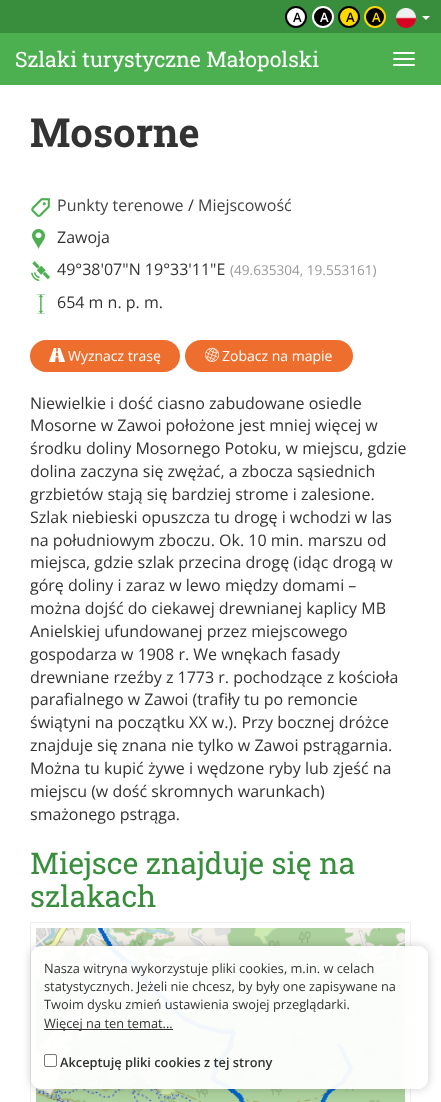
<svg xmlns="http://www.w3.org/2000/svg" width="441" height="1102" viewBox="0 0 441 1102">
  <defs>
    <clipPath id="clip1"><path d="M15 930H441V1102H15ZM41 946H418C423.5 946 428 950.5 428 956V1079C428 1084.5 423.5 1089 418 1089H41C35.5 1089 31 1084.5 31 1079V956C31 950.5 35.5 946 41 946Z" clip-rule="evenodd"/></clipPath>
  </defs>
  <rect width="100%" height="100%" fill="#fff"/>
  <path d="M0 33h441v52H0z" fill="#4caf50"/>
  <path d="M0 0h441v33H0z" fill="#388e3c"/>
  <circle cx="296" cy="17" r="10" fill="#fff" stroke="#000" stroke-width="2"/>
  <circle cx="323" cy="17" r="10" fill="#000" stroke="#fff" stroke-width="2"/>
  <circle cx="349" cy="17" r="10" fill="#ffd800" stroke="#000" stroke-width="2"/>
  <circle cx="375" cy="17" r="10" fill="#000" stroke="#ffd800" stroke-width="2"/>
  <image x="396" y="8" width="20" height="20" href="img/1.png"/>
  <path d="M422 16H430L426 20Z" fill="#fff"/>
  <rect x="393" y="52" width="22" height="2" rx="1" fill="#fff"/>
  <rect x="393" y="58" width="22" height="2" rx="1" fill="#fff"/>
  <rect x="393" y="64" width="22" height="2" rx="1" fill="#fff"/>
  <image x="31" y="198" width="19" height="19" href="img/2.png"/>
  <image x="32" y="229" width="13" height="20" href="img/3.png"/>
  <image x="31" y="261" width="19" height="20" href="img/4.png"/>
  <image x="37" y="294" width="8" height="20" href="img/5.png"/>
  <rect x="30" y="340" width="150" height="32" rx="16" fill="#ee6e2d"/>
  <image x="48" y="348" width="18" height="14" href="img/6.png"/>
  <rect x="185" y="340" width="168" height="32" rx="16" fill="#ee6e2d"/>
  <image x="205" y="347" width="14" height="15" href="img/7.png"/>
  <path d="M30.5 922.5h380v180H30.5z" fill="none" stroke="#eee"/>
  <image x="36" y="928" width="369" height="174" href="img/8.png"/>
  <g clip-path="url(#clip1)">
    <rect x="31" y="946" width="397" height="143" rx="10" fill="#00000033" filter="blur(5px)"/>
  </g>
  <rect x="31" y="946" width="397" height="143" rx="10" fill="#fffffff2"/>
  <path d="M44 1029h129v1H44z" fill="#333"/>
  <rect x="44.5" y="1054.5" width="12" height="12" rx="1.5" fill="#fff" stroke="#767676"/>
  <text x="293" y="22" font-family="Open Sans" font-size="13" font-weight="600" fill="#000">A</text>
  <text x="320" y="22" font-family="Open Sans" font-size="13" font-weight="600" fill="#fff">A</text>
  <text x="346" y="22" font-family="Open Sans" font-size="13" font-weight="600" fill="#000">A</text>
  <text x="372" y="22" font-family="Open Sans" font-size="13" font-weight="600" fill="#ffd800">A</text>
  <text x="15" y="67" font-family="Roboto Slab" font-size="21.3" fill="#fff">Szlaki turystyczne Małopolski</text>
  <text x="30" y="147" font-family="Roboto Slab" font-size="40" font-weight="bold" fill="#333">Mosorne</text>
  <text x="57" y="211" font-family="Open Sans" font-size="16" fill="#444">Punkty terenowe</text>
  <text x="188" y="211" font-family="Open Sans" font-size="16" fill="#333">/</text>
  <text x="198" y="211" font-family="Open Sans" font-size="16" fill="#444">Miejscowość</text>
  <g font-family="Open Sans" font-size="16" fill="#333">
    <text x="57" y="243">Zawoja</text>
    <text x="57" y="275">49°38'07"N 19°33'11"E</text>
  </g>
  <text x="230" y="275" font-family="Open Sans" font-size="13.6" fill="#999">(49.635304, 19.553161)</text>
  <text x="57" y="308" font-family="Open Sans" font-size="16" fill="#333">654 m n. p. m.</text>
  <g font-family="Open Sans" font-size="14" fill="#fff">
    <text x="68" y="361">Wyznacz trasę</text>
    <text x="222" y="361">Zobacz na mapie</text>
  </g>
  <g font-family="Open Sans" font-size="16" fill="#333">
    <text x="30" y="409">Niewielkie i dość ciasno zabudowane osiedle</text>
    <text x="30" y="431">Mosorne w Zawoi położone jest mniej więcej w</text>
    <text x="30" y="454">środku doliny Mosornego Potoku, w miejscu, gdzie</text>
    <text x="30" y="477">dolina zaczyna się zwężać, a zbocza sąsiednich</text>
    <text x="30" y="500">grzbietów stają się bardziej strome i zalesione.</text>
    <text x="30" y="523">Szlak niebieski opuszcza tu drogę i wchodzi w las</text>
    <text x="30" y="546">na południowym zboczu. Ok. 10 min. marszu od</text>
    <text x="30" y="568">miejsca, gdzie szlak przecina drogę (idąc drogą w</text>
    <text x="30" y="591">górę doliny i zaraz w lewo między domami –</text>
    <text x="30" y="614">można dojść do ciekawej drewnianej kaplicy MB</text>
    <text x="30" y="637">Anielskiej ufundowanej przez miejscowego</text>
    <text x="30" y="660">gospodarza w 1908 r. We wnękach fasady</text>
    <text x="30" y="683">drewniane rzeźby z 1773 r. pochodzące z kościoła</text>
    <text x="30" y="705">parafialnego w Zawoi (trafiły tu po remoncie</text>
    <text x="30" y="728">świątyni na początku XX w.). Przy bocznej dróżce</text>
    <text x="30" y="751">znajduje się znana nie tylko w Zawoi pstrągarnia.</text>
    <text x="30" y="774">Można tu kupić żywe i wędzone ryby lub zjeść na</text>
    <text x="30" y="797">miejscu (w dość skromnych warunkach)</text>
    <text x="30" y="820">smażonego pstrąga.</text>
  </g>
  <g font-family="Roboto Slab" font-size="30" fill="#388e3c">
    <text x="30" y="874">Miejsce znajduje się na</text>
    <text x="30" y="907">szlakach</text>
  </g>
  <g font-family="Open Sans" font-size="12.8" fill="#333">
    <text x="44" y="973">Nasza witryna wykorzystuje pliki cookies, m.in. w celach</text>
    <text x="44" y="991">statystycznych. Jeżeli nie chcesz, by były one zapisywane na</text>
    <text x="44" y="1009">Twoim dysku zmień ustawienia swojej przeglądarki.</text>
    <text x="44" y="1028">Więcej na ten temat...</text>
  </g>
  <text x="60" y="1067" font-family="Open Sans" font-size="12.8" font-weight="600" fill="#333">Akceptuję pliki cookies z tej strony</text>
</svg>
